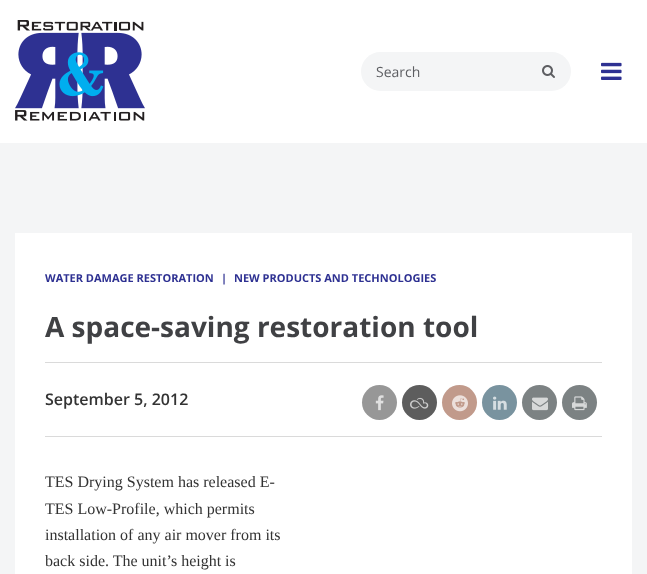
<svg xmlns="http://www.w3.org/2000/svg" width="647" height="574" viewBox="0 0 647 574">
  <rect width="100%" height="100%" fill="#f4f5f6"/>
  <path d="M0 0h647v143H0z" fill="#fff"/>
  <image x="15" y="20" width="130" height="101" href="img/1.png"/>
  <rect x="361" y="52" width="210" height="39" rx="19.5" fill="#f4f5f6"/>
  <image x="542" y="65" width="13" height="13" href="img/2.png"/>
  <image x="601" y="62" width="21" height="18" href="img/3.png"/>
  <path d="M15 233h617v341H15z" fill="#fff"/>
  <path d="M45 362h557v1H45z" fill="#dadada"/>
  <path d="M45 436h557v1H45z" fill="#dadada"/>
  <circle cx="379.5" cy="402.5" r="17.5" fill="#979797"/>
  <image x="375" y="395" width="9" height="16" href="img/4.png"/>
  <circle cx="419.5" cy="402.5" r="17.5" fill="#5d5d5d"/>
  <image x="410" y="397" width="19" height="12" href="img/5.png"/>
  <circle cx="459.5" cy="402.5" r="17.5" fill="#c19a8b"/>
  <image x="452" y="395" width="16" height="17" href="img/6.png"/>
  <circle cx="499.5" cy="402.5" r="17.5" fill="#79939f"/>
  <image x="493" y="396" width="14" height="14" href="img/7.png"/>
  <circle cx="539.5" cy="402.5" r="17.5" fill="#7c8283"/>
  <image x="532" y="397" width="16" height="14" href="img/8.png"/>
  <circle cx="579.5" cy="402.5" r="17.5" fill="#7c8283"/>
  <image x="572" y="396" width="15" height="15" href="img/9.png"/>
  <text x="376" y="77" font-family="Open Sans" font-size="14" fill="#5d5e62">Search</text>
  <g font-family="Open Sans" font-size="11" font-weight="bold" fill="#2e3192">
    <text x="45" y="282">WATER DAMAGE RESTORATION</text>
    <text x="221" y="282">|</text>
    <text x="234" y="282">NEW PRODUCTS AND TECHNOLOGIES</text>
  </g>
  <text x="45" y="337" font-family="Open Sans" font-size="28" font-weight="bold" fill="#404144">A space-saving restoration tool</text>
  <text x="45" y="405" font-family="Open Sans" font-size="16" font-weight="600" fill="#333">September 5, 2012</text>
  <g font-family="Liberation Serif" font-size="16" fill="#333">
    <text x="45" y="487">TES Drying System has released E-</text>
    <text x="45" y="514">TES Low-Profile, which permits</text>
    <text x="45" y="540">installation of any air mover from its</text>
    <text x="45" y="566">back side. The unit’s height is</text>
  </g>
</svg>
